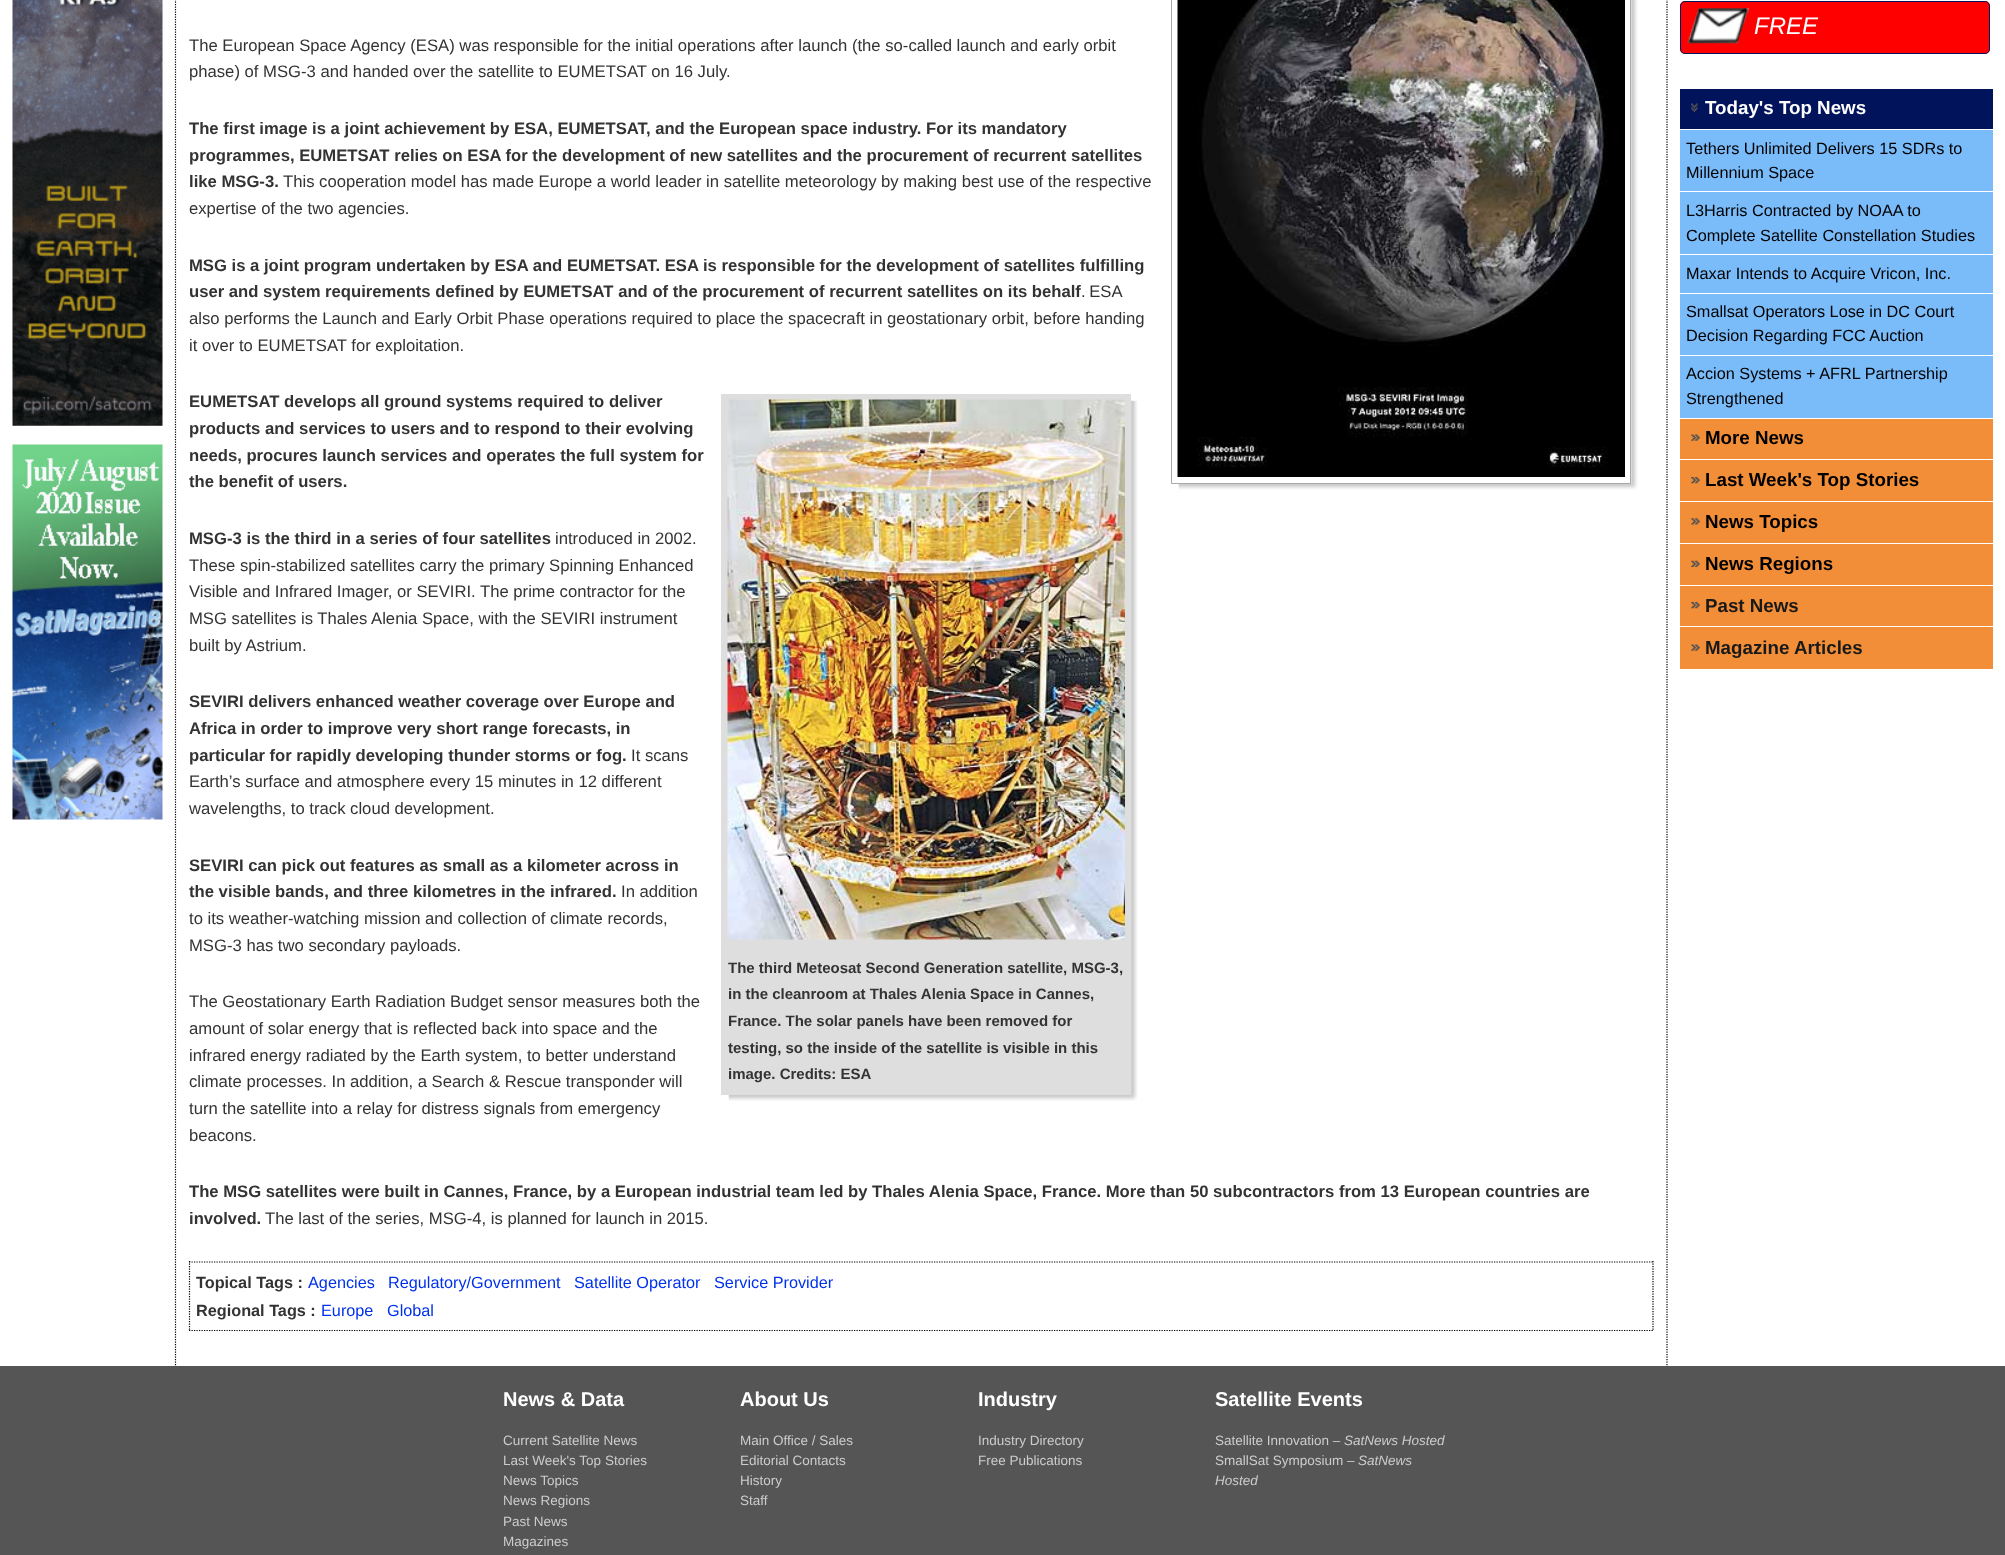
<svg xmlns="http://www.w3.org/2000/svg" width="2005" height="1555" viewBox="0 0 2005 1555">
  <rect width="100%" height="100%" fill="#fff"/>
  <image x="12" y="0" width="151" height="426" href="img/1.png"/>
  <image x="12" y="444" width="151" height="376" href="img/2.png"/>
  <path d="M1667-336V1366" fill="none" stroke="#000" stroke-width="1.2" stroke-dasharray="1.25 1.25"/>
  <path d="M175.5-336V1366" fill="none" stroke="#000" stroke-width="1.2" stroke-dasharray="1.25 1.25"/>
  <image x="1178" y="0" width="460" height="490" href="img/3.png"/>
  <path d="M1171.5 -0.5h459v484H1171.5z" fill="none" stroke="#a9a9a9"/>
  <image x="1177" y="0" width="448" height="477" href="img/4.png"/>
  <image x="728" y="400" width="410" height="701" href="img/5.png"/>
  <path d="M721 394h410v701H721z" fill="#dedede"/>
  <image x="727" y="399" width="398" height="541" href="img/6.png"/>
  <path d="M189 1262H1654" fill="none" stroke="#000" stroke-width="1.2" stroke-dasharray="1.25 1.25"/>
  <path d="M1653 1261V1331" fill="none" stroke="#000" stroke-width="1.2" stroke-dasharray="1.25 1.25"/>
  <path d="M189 1330.5H1654" fill="none" stroke="#000" stroke-width="1.2" stroke-dasharray="1.25 1.25"/>
  <path d="M189.5 1261V1331" fill="none" stroke="#000" stroke-width="1.2" stroke-dasharray="1.25 1.25"/>
  <rect x="1680" y="1" width="310" height="53" rx="5" fill="#f00"/>
  <image x="1687" y="8" width="62" height="36" href="img/7.png"/>
  <rect x="1680.5" y="1.5" width="309" height="52" rx="4.5" fill="none" stroke="#00135b"/>
  <path d="M1680 89h313v40H1680z" fill="#00135b"/>
  <image x="1691" y="103" width="7" height="9" href="img/8.png"/>
  <path d="M1680 130h313v124H1680z" fill="#7abbf9"/>
  <path d="M1680 191h313v1H1680z" fill="#fff"/>
  <path d="M1680 255h313v38H1680z" fill="#7abbf9"/>
  <path d="M1680 294h313v61H1680z" fill="#7abbf9"/>
  <path d="M1680 356h313v62H1680z" fill="#7abbf9"/>
  <path d="M1680 419h313v40H1680z" fill="#f28e37"/>
  <image x="1691" y="434" width="9" height="7" href="img/9.png"/>
  <path d="M1680 460h313v83H1680z" fill="#f28e37"/>
  <image x="1691" y="477" width="9" height="7" href="img/10.png"/>
  <path d="M1680 501h313v1H1680z" fill="#fff"/>
  <image x="1691" y="518" width="9" height="7" href="img/11.png"/>
  <path d="M1680 544h313v41H1680z" fill="#f28e37"/>
  <image x="1691" y="560" width="9" height="7" href="img/12.png"/>
  <path d="M1680 586h313v83H1680z" fill="#f28e37"/>
  <image x="1691" y="602" width="9" height="7" href="img/10.png"/>
  <path d="M1680 626h313v1H1680z" fill="#fff"/>
  <image x="1691" y="644" width="9" height="7" href="img/9.png"/>
  <path d="M0 1366h2005v189H0z" fill="#555"/>
  <g font-family="Liberation Sans" font-size="16.67" fill="#333">
    <text x="189" y="51">The European Space Agency (ESA) was responsible for the initial operations after launch (the so-called launch and early orbit</text>
    <text x="189" y="77">phase) of MSG-3 and handed over the satellite to EUMETSAT on 16 July.</text>
  </g>
  <g font-family="Liberation Sans" font-size="16.67" font-weight="bold" fill="#333">
    <text x="189" y="134">The first image is a joint achievement by ESA, EUMETSAT, and the European space industry. For its mandatory</text>
    <text x="189" y="161">programmes, EUMETSAT relies on ESA for the development of new satellites and the procurement of recurrent satellites</text>
    <text x="189" y="187">like MSG-3.</text>
  </g>
  <g font-family="Liberation Sans" font-size="16.67" fill="#333">
    <text x="283" y="187">This cooperation model has made Europe a world leader in satellite meteorology by making best use of the respective</text>
    <text x="189" y="214">expertise of the two agencies.</text>
  </g>
  <g font-family="Liberation Sans" font-size="16.67" font-weight="bold" fill="#333">
    <text x="189" y="271">MSG is a joint program undertaken by ESA and EUMETSAT. ESA is responsible for the development of satellites fulfilling</text>
    <text x="189" y="297">user and system requirements defined by EUMETSAT and of the procurement of recurrent satellites on its behalf</text>
  </g>
  <g font-family="Liberation Sans" font-size="16.67" fill="#333">
    <text x="1081" y="297" word-spacing="-1">. ESA</text>
    <text x="189" y="324">also performs the Launch and Early Orbit Phase operations required to place the spacecraft in geostationary orbit, before handing</text>
    <text x="189" y="351">it over to EUMETSAT for exploitation.</text>
  </g>
  <g font-family="Liberation Sans" font-size="16.67" font-weight="bold" fill="#333">
    <text x="189" y="407">EUMETSAT develops all ground systems required to deliver</text>
    <text x="189" y="434">products and services to users and to respond to their evolving</text>
    <text x="189" y="461">needs, procures launch services and operates the full system for</text>
    <text x="189" y="487">the benefit of users.</text>
    <text x="189" y="544">MSG-3 is the third in a series of four satellites</text>
  </g>
  <g font-family="Liberation Sans" font-size="16.67" fill="#333">
    <text x="555" y="544">introduced in 2002.</text>
    <text x="189" y="571">These spin-stabilized satellites carry the primary Spinning Enhanced</text>
    <text x="189" y="597">Visible and Infrared Imager, or SEVIRI. The prime contractor for the</text>
    <text x="189" y="624">MSG satellites is Thales Alenia Space, with the SEVIRI instrument</text>
    <text x="189" y="651">built by Astrium.</text>
  </g>
  <g font-family="Liberation Sans" font-size="16.67" font-weight="bold" fill="#333">
    <text x="189" y="707">SEVIRI delivers enhanced weather coverage over Europe and</text>
    <text x="189" y="734">Africa in order to improve very short range forecasts, in</text>
    <text x="189" y="761">particular for rapidly developing thunder storms or fog.</text>
  </g>
  <g font-family="Liberation Sans" font-size="16.67" fill="#333">
    <text x="631" y="761">It scans</text>
    <text x="189" y="787">Earth’s surface and atmosphere every 15 minutes in 12 different</text>
    <text x="189" y="814">wavelengths, to track cloud development.</text>
  </g>
  <g font-family="Liberation Sans" font-size="16.67" font-weight="bold" fill="#333">
    <text x="189" y="871">SEVIRI can pick out features as small as a kilometer across in</text>
    <text x="189" y="897">the visible bands, and three kilometres in the infrared.</text>
  </g>
  <g font-family="Liberation Sans" font-size="16.67" fill="#333">
    <text x="621" y="897">In addition</text>
    <text x="189" y="924">to its weather-watching mission and collection of climate records,</text>
    <text x="189" y="951">MSG-3 has two secondary payloads.</text>
    <text x="189" y="1007">The Geostationary Earth Radiation Budget sensor measures both the</text>
    <text x="189" y="1034">amount of solar energy that is reflected back into space and the</text>
    <text x="189" y="1061">infrared energy radiated by the Earth system, to better understand</text>
    <text x="189" y="1087">climate processes. In addition, a Search &amp; Rescue transponder will</text>
    <text x="189" y="1114">turn the satellite into a relay for distress signals from emergency</text>
    <text x="189" y="1141">beacons.</text>
  </g>
  <g font-family="Liberation Sans" font-size="15" font-weight="bold" fill="#333">
    <text x="728" y="973">The third Meteosat Second Generation satellite, MSG-3,</text>
    <text x="728" y="999">in the cleanroom at Thales Alenia Space in Cannes,</text>
    <text x="728" y="1026">France. The solar panels have been removed for</text>
    <text x="728" y="1053">testing, so the inside of the satellite is visible in this</text>
    <text x="728" y="1079">image. Credits: ESA</text>
  </g>
  <g font-family="Liberation Sans" font-size="16.67" font-weight="bold" fill="#333">
    <text x="189" y="1197">The MSG satellites were built in Cannes, France, by a European industrial team led by Thales Alenia Space, France. More than 50 subcontractors from 13 European countries are</text>
    <text x="189" y="1224">involved.</text>
  </g>
  <text x="265" y="1224" font-family="Liberation Sans" font-size="16.67" fill="#333">The last of the series, MSG-4, is planned for launch in 2015.</text>
  <text x="196" y="1288" font-family="Liberation Sans" font-size="16.25" font-weight="bold" fill="#333">Topical Tags :</text>
  <g font-family="Liberation Sans" font-size="16.25" fill="#0031ec">
    <text x="308" y="1288">Agencies</text>
    <text x="388" y="1288">Regulatory/Government</text>
    <text x="574" y="1288">Satellite Operator</text>
    <text x="714" y="1288">Service Provider</text>
  </g>
  <text x="196" y="1316" font-family="Liberation Sans" font-size="16.25" font-weight="bold" fill="#333">Regional Tags :</text>
  <g font-family="Liberation Sans" font-size="16.25" fill="#0031ec">
    <text x="321" y="1316">Europe</text>
    <text x="387" y="1316">Global</text>
  </g>
  <text x="1754" y="34" font-family="Liberation Sans" font-size="24" font-style="italic" fill="#fff">FREE</text>
  <text x="1705" y="114" font-family="Liberation Sans" font-size="18.75" font-weight="bold" fill="#fff">Today's Top News</text>
  <g font-family="Liberation Sans" font-size="16.25" fill="#000">
    <text x="1686" y="154">Tethers Unlimited Delivers 15 SDRs to</text>
    <text x="1686" y="178">Millennium Space</text>
    <text x="1686" y="216">L3Harris Contracted by NOAA to</text>
    <text x="1686" y="241">Complete Satellite Constellation Studies</text>
    <text x="1686" y="279">Maxar Intends to Acquire Vricon, Inc.</text>
    <text x="1686" y="317">Smallsat Operators Lose in DC Court</text>
    <text x="1686" y="341">Decision Regarding FCC Auction</text>
    <text x="1686" y="379">Accion Systems + AFRL Partnership</text>
    <text x="1686" y="404">Strengthened</text>
  </g>
  <g font-family="Liberation Sans" font-size="18.75" font-weight="bold" fill="#000">
    <text x="1705" y="444">More News</text>
    <text x="1705" y="486">Last Week's Top Stories</text>
    <text x="1705" y="528">News Topics</text>
    <text x="1705" y="570">News Regions</text>
  </g>
  <g font-family="Liberation Sans" font-size="18.75" font-weight="bold" fill="#191919">
    <text x="1705" y="612">Past News</text>
    <text x="1705" y="654">Magazine Articles</text>
  </g>
  <text x="503" y="1406" font-family="Liberation Sans" font-size="20" font-weight="bold" fill="#fff">News &amp; Data</text>
  <g font-family="Liberation Sans" font-size="13.5" fill="#ccc">
    <text x="503" y="1445">Current Satellite News</text>
    <text x="503" y="1465">Last Week's Top Stories</text>
    <text x="503" y="1485">News Topics</text>
    <text x="503" y="1505">News Regions</text>
    <text x="503" y="1526">Past News</text>
    <text x="503" y="1546">Magazines</text>
  </g>
  <text x="740" y="1406" font-family="Liberation Sans" font-size="20" font-weight="bold" fill="#fff">About Us</text>
  <g font-family="Liberation Sans" font-size="13.5" fill="#ccc">
    <text x="740" y="1445">Main Office / Sales</text>
    <text x="740" y="1465">Editorial Contacts</text>
    <text x="740" y="1485">History</text>
    <text x="740" y="1505">Staff</text>
  </g>
  <text x="978" y="1406" font-family="Liberation Sans" font-size="20" font-weight="bold" fill="#fff">Industry</text>
  <g font-family="Liberation Sans" font-size="13.5" fill="#ccc">
    <text x="978" y="1445">Industry Directory</text>
    <text x="978" y="1465">Free Publications</text>
  </g>
  <text x="1215" y="1406" font-family="Liberation Sans" font-size="20" font-weight="bold" fill="#fff">Satellite Events</text>
  <text x="1215" y="1445" font-family="Liberation Sans" font-size="13.5" fill="#ccc">Satellite Innovation –</text>
  <text x="1344" y="1445" font-family="Liberation Sans" font-size="13.5" font-style="italic" fill="#ccc">SatNews Hosted</text>
  <text x="1215" y="1465" font-family="Liberation Sans" font-size="13.5" fill="#ccc">SmallSat Symposium –</text>
  <g font-family="Liberation Sans" font-size="13.5" font-style="italic" fill="#ccc">
    <text x="1358" y="1465">SatNews</text>
    <text x="1215" y="1485">Hosted</text>
  </g>
</svg>
